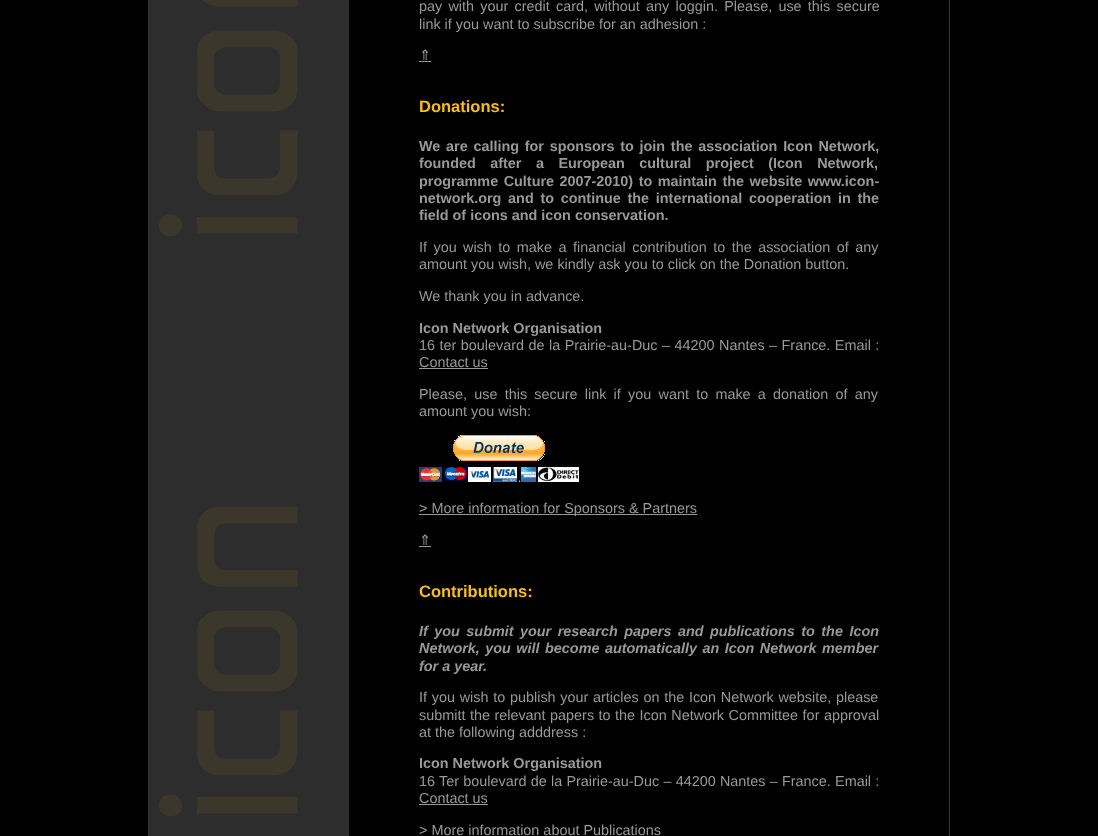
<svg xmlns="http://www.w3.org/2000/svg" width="1098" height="836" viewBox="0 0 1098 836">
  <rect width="100%" height="100%" fill="#000"/>
  <path d="M148.5 -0.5h801v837H148.5z" fill="none" stroke="#333"/>
  <image x="149" y="0" width="200" height="836" href="img/1.png"/>
  <path d="M419 61h12v1H419z" fill="#999"/>
  <path d="M419 368h69v1H419z" fill="#999"/>
  <image x="419" y="435" width="160" height="47" href="img/2.png"/>
  <path d="M419 514h278v1H419z" fill="#999"/>
  <path d="M419 546h12v1H419z" fill="#999"/>
  <path d="M419 804h69v1H419z" fill="#999"/>
  <g font-family="Liberation Sans" font-size="14.4" fill="#999">
    <text x="419" y="11" word-spacing="2.25">pay with your credit card, without any loggin. Please, use this secure</text>
    <text x="419" y="29">link if you want to subscribe for an adhesion :</text>
  </g>
  <text x="419" y="60" font-family="DejaVu Sans" font-size="14.4" fill="#999">⇑</text>
  <text x="419" y="112" font-family="Liberation Sans" font-size="16.5" font-weight="bold" fill="#f9bf12">Donations:</text>
  <g font-family="Liberation Sans" font-size="14.4" font-weight="bold" fill="#999">
    <text x="419" y="151" word-spacing="1.75">We are calling for sponsors to join the association Icon Network,</text>
    <text x="419" y="168" word-spacing="10.5">founded after a European cultural project (Icon Network,</text>
    <text x="419" y="186" word-spacing="1.5">programme Culture 2007-2010) to maintain the website www.icon-</text>
    <text x="419" y="203" word-spacing="2.75">network.org and to continue the international cooperation in the</text>
    <text x="419" y="220">field of icons and icon conservation.</text>
  </g>
  <g font-family="Liberation Sans" font-size="14.4" fill="#999">
    <text x="419" y="252" word-spacing="2.5">If you</text>
    <text x="463" y="252" word-spacing="2.5">wish to make a financial contribution to the association of any</text>
    <text x="419" y="269">amount you wish, we kindly ask you to click on the Donation button.</text>
    <text x="419" y="301">We thank you in advance.</text>
  </g>
  <text x="419" y="333" font-family="Liberation Sans" font-size="14.4" font-weight="bold" fill="#999">Icon Network Organisation</text>
  <g font-family="Liberation Sans" font-size="14.4" fill="#999">
    <text x="419" y="350" word-spacing="0.5">16 ter boulevard de la Prairie-au-Duc – 44200 Nantes – France. Email :</text>
    <text x="419" y="367">Contact us</text>
    <text x="419" y="399" word-spacing="3.25">Please, use this secure link if you want to make a donation of any</text>
    <text x="419" y="416">amount you wish:</text>
    <text x="419" y="513">&gt; More information for Sponsors &amp; Partners</text>
  </g>
  <text x="419" y="545" font-family="DejaVu Sans" font-size="14.4" fill="#999">⇑</text>
  <text x="419" y="597" font-family="Liberation Sans" font-size="16.5" font-weight="bold" fill="#f9bf12">Contributions:</text>
  <g font-family="Liberation Sans" font-size="14.4" font-weight="bold" font-style="italic" fill="#999">
    <text x="419" y="636" word-spacing="2.5">If you submit your research papers and publications to the Icon</text>
    <text x="419" y="653" word-spacing="1.5">Network, you will become automatically an Icon Network member</text>
    <text x="419" y="671">for a year.</text>
  </g>
  <g font-family="Liberation Sans" font-size="14.4" fill="#999">
    <text x="419" y="702" word-spacing="0.75">If you wish to publish your articles on the Icon Network website, please</text>
    <text x="419" y="720" word-spacing="0.5">submitt the relevant papers to the Icon Network Committee for approval</text>
    <text x="419" y="737">at the following adddress :</text>
  </g>
  <text x="419" y="768" font-family="Liberation Sans" font-size="14.4" font-weight="bold" fill="#999">Icon Network Organisation</text>
  <g font-family="Liberation Sans" font-size="14.4" fill="#999">
    <text x="419" y="786" word-spacing="0.25">16 Ter boulevard de la Prairie-au-Duc – 44200 Nantes – France. Email :</text>
    <text x="419" y="803">Contact us</text>
    <text x="419" y="835">&gt; More information about Publications</text>
  </g>
</svg>
